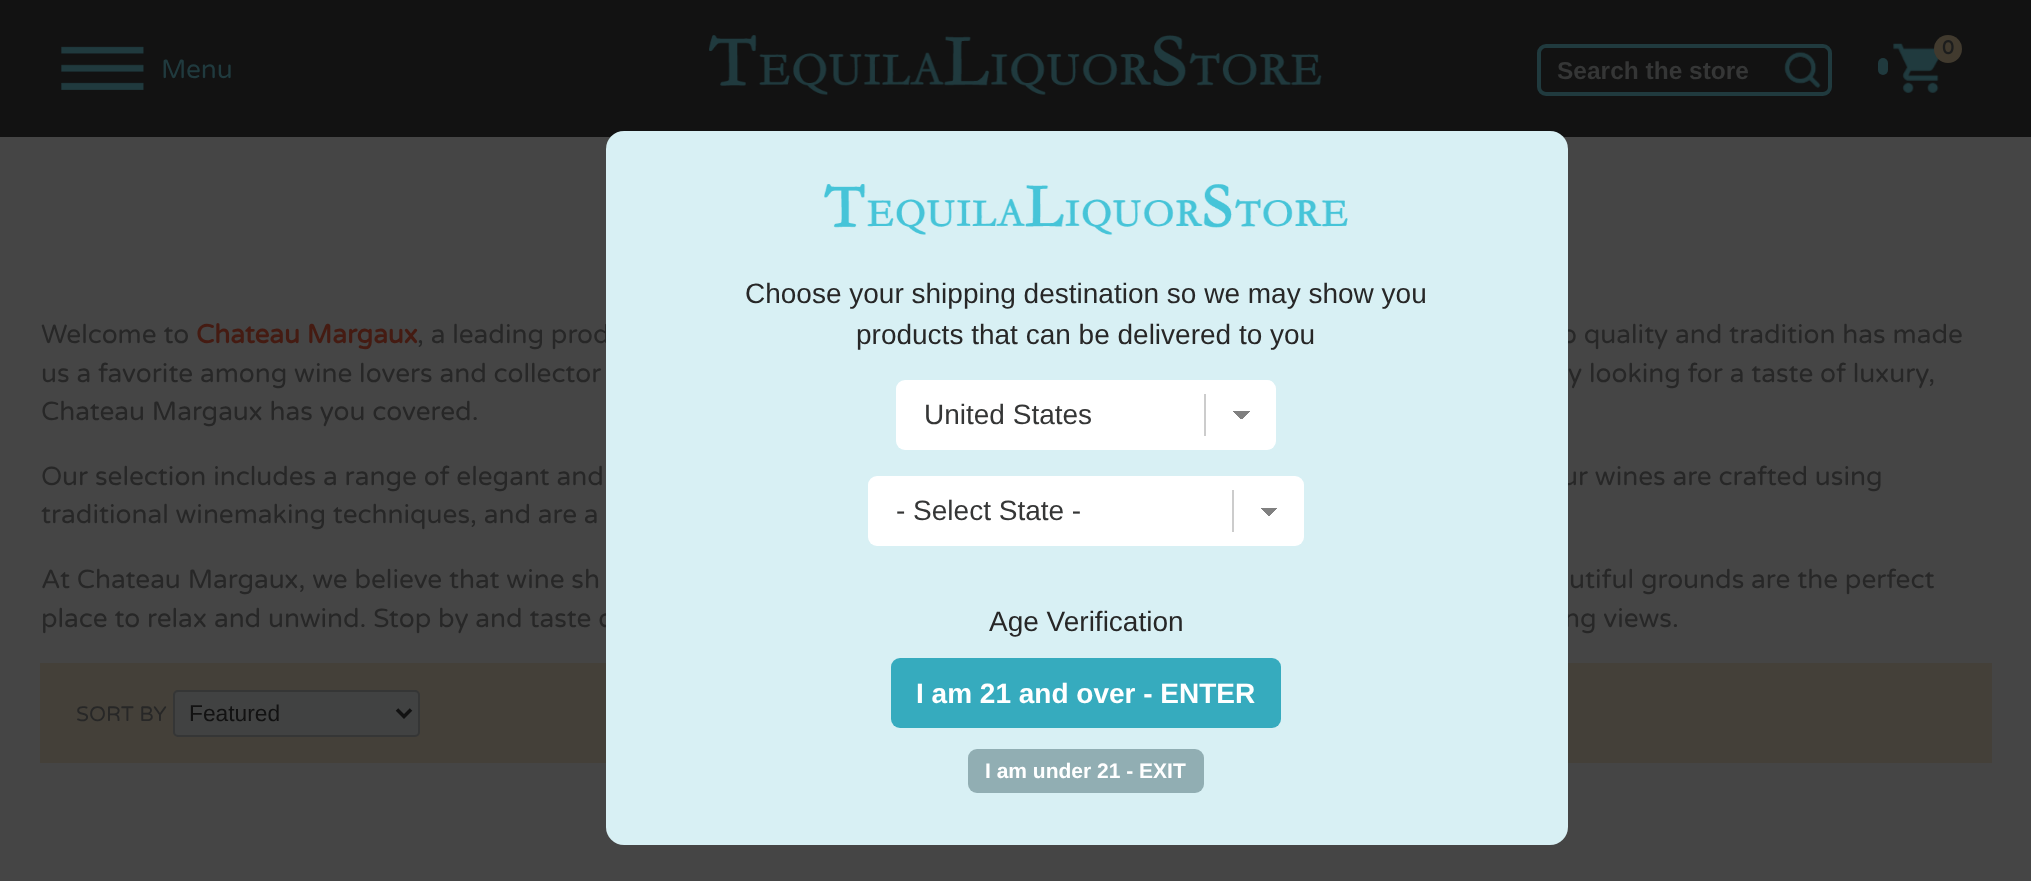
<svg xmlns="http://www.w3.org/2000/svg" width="2031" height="881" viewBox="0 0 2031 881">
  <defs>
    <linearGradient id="g1" gradientUnits="userSpaceOnUse" x1="1260" y1="516" x2="1269" y2="508"><stop offset="0.5" stop-color="#fff"/><stop offset="0.5" stop-color="#808080"/></linearGradient>
    <linearGradient id="g2" gradientUnits="userSpaceOnUse" x1="1269" y1="508" x2="1278" y2="516"><stop offset="0.5" stop-color="#808080"/><stop offset="0.5" stop-color="#fff"/></linearGradient>
    <linearGradient id="g3" gradientUnits="userSpaceOnUse" x1="1232" y1="420" x2="1241" y2="411"><stop offset="0.5" stop-color="#fff"/><stop offset="0.5" stop-color="#808080"/></linearGradient>
    <linearGradient id="g4" gradientUnits="userSpaceOnUse" x1="1241" y1="411" x2="1250" y2="420"><stop offset="0.5" stop-color="#808080"/><stop offset="0.5" stop-color="#fff"/></linearGradient>
  </defs>
  <rect width="100%" height="100%" fill="#454545"/>
  <path d="M0 0h2031v137H0z" fill="#121212"/>
  <image x="61" y="46" width="83" height="44" href="img/1.png"/>
  <image x="709" y="35" width="613" height="60" href="img/2.png"/>
  <image x="1893" y="43" width="47" height="50" href="img/3.png"/>
  <circle cx="1948" cy="49" r="14" fill="#413a2e"/>
  <rect x="1539" y="46" width="291" height="48" rx="7" fill="none" stroke="#203a3e" stroke-width="4"/>
  <image x="1784" y="51" width="37" height="37" href="img/4.png"/>
  <rect x="1878" y="58" width="10" height="17" rx="5" fill="#203a3e"/>
  <path d="M40 663h1952v100H40z" fill="#444039"/>
  <rect x="174" y="691" width="245" height="45" rx="4" fill="#414242" stroke="#353636" stroke-width="2"/>
  <path d="M397 709.5L404 716.5L411 709.5" fill="none" stroke="#121212" stroke-width="3.5"/>
  <text x="161" y="78" font-family="Varela Round" font-size="26.25" fill="#203a3e">Menu</text>
  <text x="1942" y="54" font-family="Varela Round" font-size="19" font-weight="bold" fill="#1c1d1d">0</text>
  <text x="1557" y="79" font-family="Liberation Sans" font-size="24.5" font-weight="bold" fill="#353636">Search the store</text>
  <text x="41" y="343" font-family="Varela Round" font-size="26.25" fill="#272727">Welcome to</text>
  <text x="196" y="343" font-family="Varela Round" font-size="26.25" font-weight="bold" fill="#451b12">Chateau Margaux</text>
  <g font-family="Varela Round" font-size="26.25" fill="#272727">
    <text x="417" y="343">, a leading prod</text>
    <text x="1561" y="343">o quality and tradition has made</text>
    <text x="41" y="382">us a favorite among wine lovers and collector</text>
    <text x="1568" y="382">y looking for a taste of luxury,</text>
    <text x="41" y="420">Chateau Margaux has you covered.</text>
    <text x="41" y="485">Our selection includes a range of elegant and</text>
    <text x="1562" y="485">ur wines are crafted using</text>
    <text x="41" y="523">traditional winemaking techniques, and are a</text>
    <text x="41" y="588">At Chateau Margaux, we believe that wine sh</text>
    <text x="1569" y="588">utiful grounds are the perfect</text>
    <text x="41" y="627">place to relax and unwind. Stop by and taste o</text>
    <text x="1564" y="627">ng views.</text>
  </g>
  <rect x="606" y="131" width="962" height="714" rx="18" fill="#d8f0f4"/>
  <rect x="968" y="749" width="236" height="44" rx="9" fill="#91aeb3"/>
  <text x="985" y="778" font-family="Liberation Sans" font-size="21" font-weight="bold" fill="#fff">I am under 21 - EXIT</text>
  <rect x="891" y="658" width="390" height="70" rx="9" fill="#36abbe"/>
  <text x="916" y="703" font-family="Liberation Sans" font-size="28" font-weight="bold" fill="#fff">I am 21 and over - ENTER</text>
  <text x="989" y="631" font-family="Liberation Sans" font-size="28" fill="#272727">Age Verification</text>
  <rect x="868" y="476" width="436" height="70" rx="9" fill="#fff"/>
  <text x="896" y="520" font-family="Liberation Sans" font-size="28" fill="#353636">- Select State -</text>
  <path d="M1260 508h9v8H1260z" fill="url(#g1)"/>
  <path d="M1269 508h9v8H1269z" fill="url(#g2)"/>
  <path d="M1232 490h2v42H1232z" fill="#ccc"/>
  <rect x="896" y="380" width="380" height="70" rx="9" fill="#fff"/>
  <text x="924" y="424" font-family="Liberation Sans" font-size="28" fill="#353636">United States</text>
  <path d="M1232 411h9v8H1232z" fill="url(#g3)"/>
  <path d="M1241 411h9v8H1241z" fill="url(#g4)"/>
  <path d="M1204 394h2v42H1204z" fill="#ccc"/>
  <g font-family="Liberation Sans" font-size="28" fill="#272727">
    <text x="856" y="344">products that can be delivered to you</text>
    <text x="745" y="303">Choose your shipping destination so we may show you</text>
  </g>
  <image x="824" y="184" width="524" height="51" href="img/5.png"/>
  <text x="76" y="721" font-family="Varela Round" font-size="21" fill="#272727">SORT BY</text>
  <text x="189" y="721" font-family="Liberation Sans" font-size="22.75" fill="#121212">Featured</text>
</svg>
